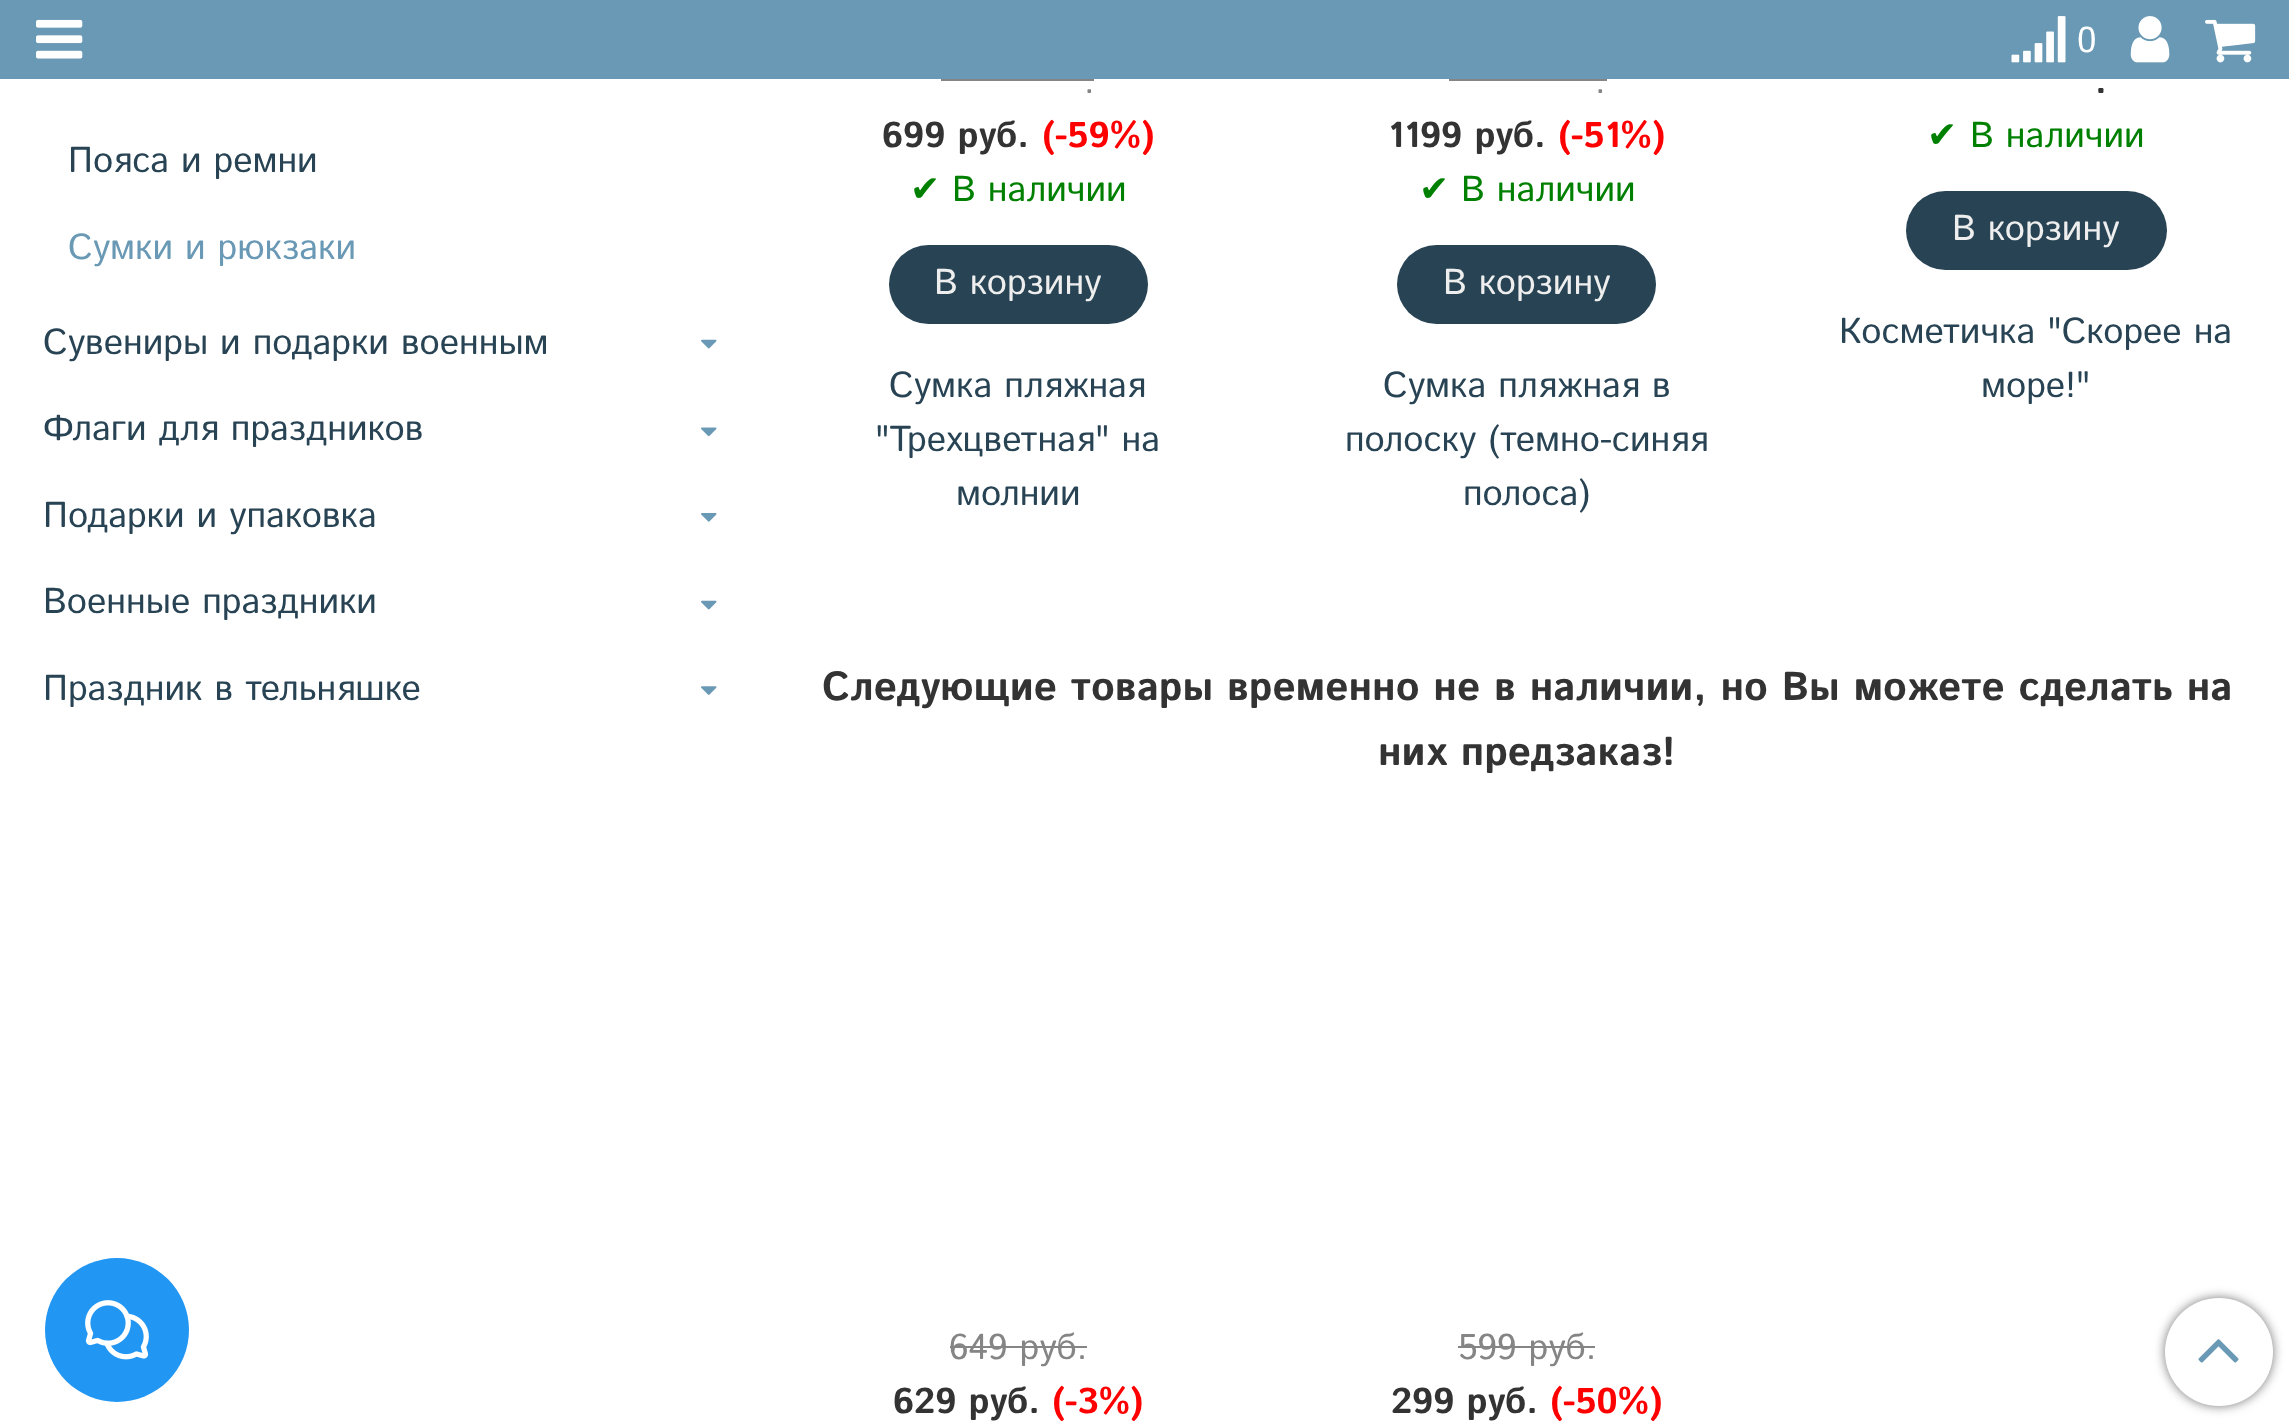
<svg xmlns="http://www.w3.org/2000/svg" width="2289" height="1423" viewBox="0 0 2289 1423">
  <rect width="100%" height="100%" fill="#fff"/>
  <path d="M0 0h2289v79H0z" fill="#6999b5"/>
  <image x="36" y="19" width="47" height="40" href="img/1.png"/>
  <image x="2011" y="16" width="55" height="47" href="img/2.png"/>
  <image x="2130" y="16" width="40" height="47" href="img/3.png"/>
  <image x="2205" y="19" width="51" height="44" href="img/4.png"/>
  <image x="701" y="339" width="16" height="10" href="img/5.png"/>
  <image x="701" y="427" width="16" height="10" href="img/6.png"/>
  <image x="701" y="513" width="16" height="9" href="img/7.png"/>
  <image x="701" y="600" width="16" height="10" href="img/5.png"/>
  <image x="701" y="686" width="16" height="9" href="img/8.png"/>
  <path d="M941 79h153v2H941z" fill="#858585"/>
  <rect x="889" y="245" width="259" height="79" rx="39.5" fill="#284454"/>
  <path d="M1449 79h158v2H1449z" fill="#858585"/>
  <rect x="1397" y="245" width="259" height="79" rx="39.5" fill="#284454"/>
  <rect x="1906" y="191" width="261" height="79" rx="39.5" fill="#284454"/>
  <path d="M950 1346h137v2H950z" fill="#858585"/>
  <path d="M1458 1346h137v2H1458z" fill="#858585"/>
  <circle cx="117" cy="1330" r="72" fill="#2196f3"/>
  <image x="85" y="1300" width="64" height="60" href="img/9.png"/>
  <rect x="2165" y="1298" width="108" height="108" rx="54" fill="#777" filter="blur(5.5px)"/>
  <circle cx="2219" cy="1352" r="54" fill="#fff"/>
  <image x="2198" y="1339" width="41" height="24" href="img/10.png"/>
  <text x="2077" y="52" font-family="Istok Web" font-size="36" fill="#fff">0</text>
  <text x="68" y="172" font-family="Istok Web" font-size="36" fill="#284454">Пояса и ремни</text>
  <text x="68" y="259" font-family="Istok Web" font-size="36" fill="#6999b5">Сумки и рюкзаки</text>
  <g font-family="Istok Web" font-size="36" fill="#284454">
    <text x="43" y="354">Сувениры и подарки военным</text>
    <text x="43" y="440">Флаги для праздников</text>
    <text x="43" y="527">Подарки и упаковка</text>
    <text x="43" y="613">Военные праздники</text>
    <text x="43" y="700">Праздник в тельняшке</text>
  </g>
  <text x="1084" y="93" font-family="Istok Web" font-size="36" fill="#858585">.</text>
  <text x="882" y="147" font-family="Istok Web" font-size="36" font-weight="bold" fill="#333">699 руб.</text>
  <text x="1042" y="147" font-family="Istok Web" font-size="36" font-weight="bold" fill="#f00">(-59%)</text>
  <text x="910" y="201" font-family="DejaVu Sans" font-size="36" fill="#008000">✔</text>
  <text x="952" y="201" font-family="Istok Web" font-size="36" fill="#008000">В наличии</text>
  <text x="934" y="294" font-family="Istok Web" font-size="36" fill="#eee">В корзину</text>
  <g font-family="Istok Web" font-size="36" fill="#284454">
    <text x="889" y="397">Сумка пляжная</text>
    <text x="875" y="451">"Трехцветная" на</text>
    <text x="956" y="505">молнии</text>
  </g>
  <text x="1595" y="93" font-family="Istok Web" font-size="36" fill="#858585">.</text>
  <text x="1388" y="147" font-family="Istok Web" font-size="36" font-weight="bold" fill="#333">1199 руб.</text>
  <text x="1558" y="147" font-family="Istok Web" font-size="36" font-weight="bold" fill="#f00">(-51%)</text>
  <text x="1419" y="201" font-family="DejaVu Sans" font-size="36" fill="#008000">✔</text>
  <text x="1461" y="201" font-family="Istok Web" font-size="36" fill="#008000">В наличии</text>
  <text x="1443" y="294" font-family="Istok Web" font-size="36" fill="#eee">В корзину</text>
  <g font-family="Istok Web" font-size="36" fill="#284454">
    <text x="1383" y="397">Сумка пляжная в</text>
    <text x="1345" y="451">полоску (темно-синяя</text>
    <text x="1463" y="505">полоса)</text>
  </g>
  <text x="2095" y="93" font-family="Istok Web" font-size="36" font-weight="bold" fill="#333">.</text>
  <text x="1927" y="147" font-family="DejaVu Sans" font-size="36" fill="#008000">✔</text>
  <text x="1970" y="147" font-family="Istok Web" font-size="36" fill="#008000">В наличии</text>
  <text x="1952" y="240" font-family="Istok Web" font-size="36" fill="#eee">В корзину</text>
  <g font-family="Istok Web" font-size="36" fill="#284454">
    <text x="1839" y="343">Косметичка "Скорее на</text>
    <text x="1981" y="397">море!"</text>
  </g>
  <g font-family="Istok Web" font-size="40.5" font-weight="bold" fill="#333">
    <text x="822" y="700">Следующие товары временно не в наличии, но Вы можете сделать на</text>
    <text x="1378" y="765">них предзаказ!</text>
  </g>
  <text x="949" y="1359" font-family="Istok Web" font-size="36" fill="#858585">649 руб.</text>
  <text x="893" y="1413" font-family="Istok Web" font-size="36" font-weight="bold" fill="#333">629 руб.</text>
  <text x="1052" y="1413" font-family="Istok Web" font-size="36" font-weight="bold" fill="#f00">(-3%)</text>
  <text x="1458" y="1359" font-family="Istok Web" font-size="36" fill="#858585">599 руб.</text>
  <text x="1391" y="1413" font-family="Istok Web" font-size="36" font-weight="bold" fill="#333">299 руб.</text>
  <text x="1550" y="1413" font-family="Istok Web" font-size="36" font-weight="bold" fill="#f00">(-50%)</text>
</svg>
